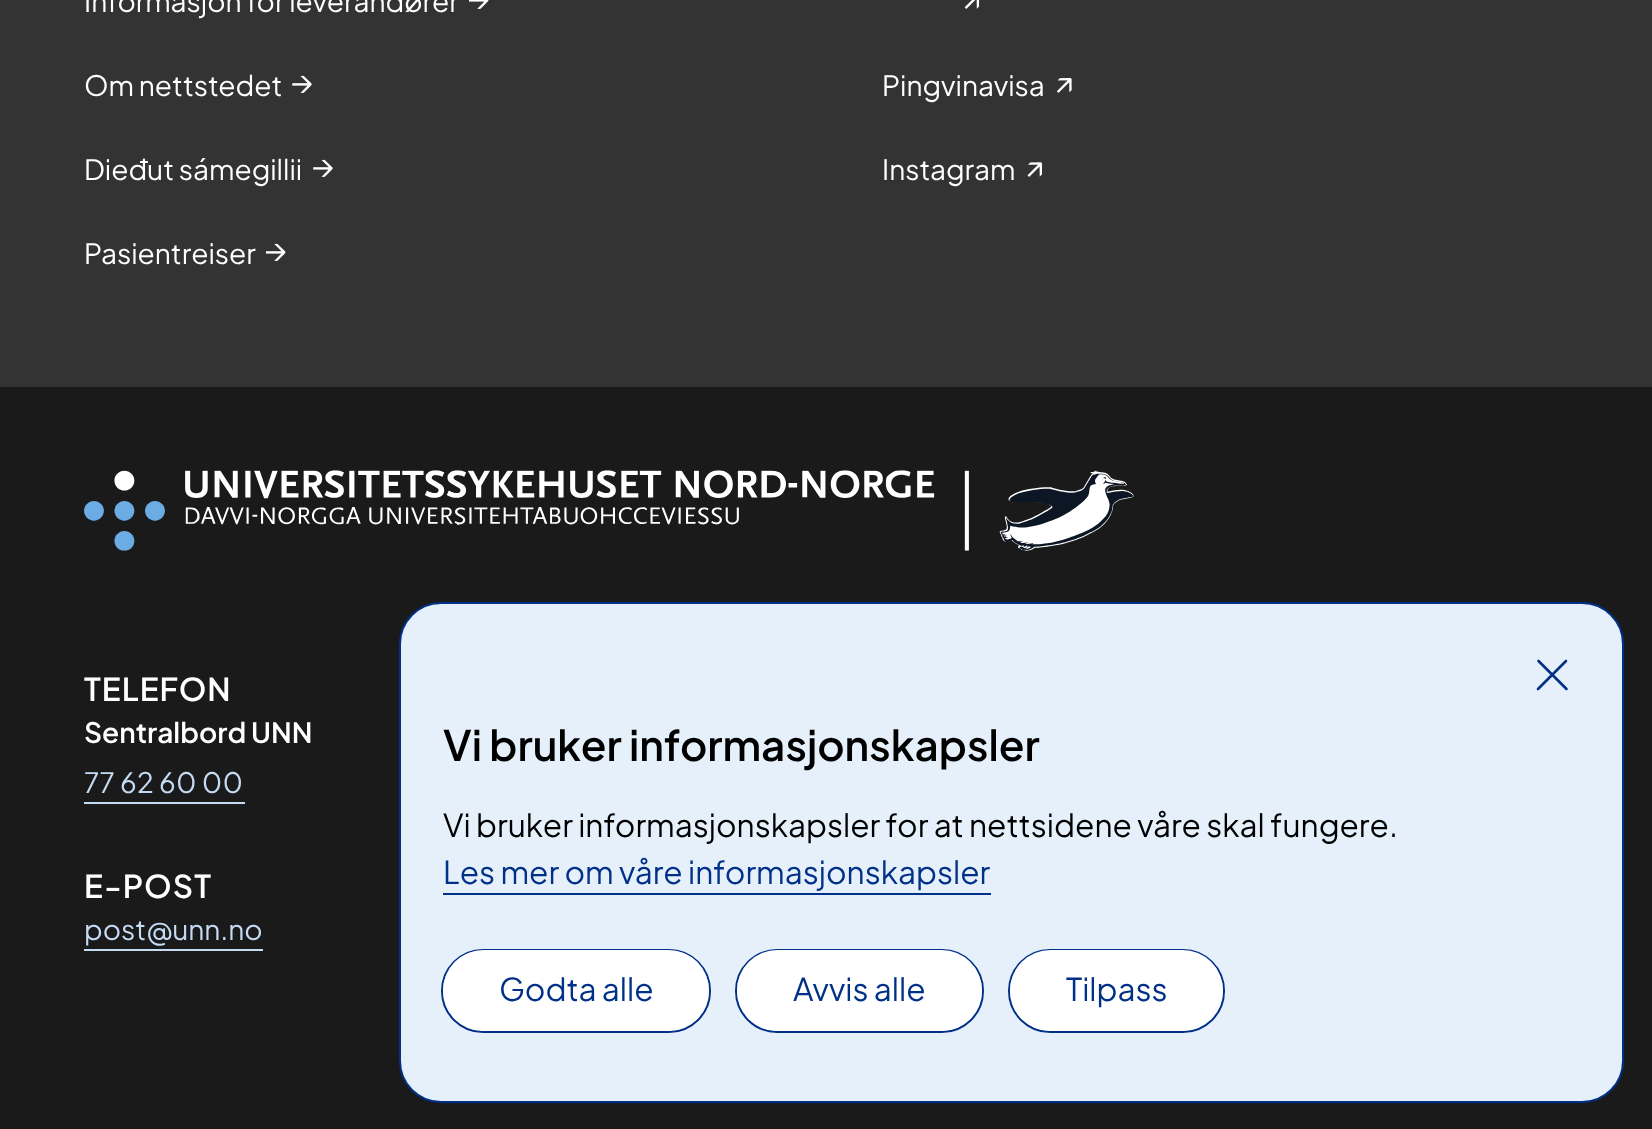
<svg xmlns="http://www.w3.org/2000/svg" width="1652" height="1129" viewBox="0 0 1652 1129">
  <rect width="100%" height="100%" fill="#333"/>
  <image x="469" y="0" width="20" height="9" href="img/1.png"/>
  <image x="292" y="75" width="20" height="18" href="img/2.png"/>
  <image x="313" y="159" width="20" height="18" href="img/2.png"/>
  <image x="266" y="243" width="20" height="18" href="img/3.png"/>
  <image x="964" y="0" width="16" height="9" href="img/4.png"/>
  <image x="1057" y="78" width="15" height="15" href="img/5.png"/>
  <image x="1027" y="162" width="15" height="15" href="img/6.png"/>
  <path d="M0 387h1652v742H0z" fill="#1a1a1a"/>
  <image x="84" y="470" width="1050" height="81" href="img/7.png"/>
  <path d="M84 802h161v2H84z" fill="#c4dbf3"/>
  <path d="M84 949h179v2H84z" fill="#c4dbf3"/>
  <rect x="400" y="603" width="1223" height="499" rx="41" fill="#e6f0fa" stroke="#003087" stroke-width="2"/>
  <path d="M1538.5 661L1566.5 689M1538 689L1566 661" fill="none" stroke="#003087" stroke-width="2.6" stroke-linecap="round"/>
  <path d="M443 893h548v2H443z" fill="#003087"/>
  <rect x="442" y="950" width="268" height="82" rx="41" fill="none" stroke="#003087" stroke-width="2"/>
  <rect x="443" y="950" width="266" height="81" rx="40.5" fill="#fff"/>
  <rect x="736" y="950" width="247" height="82" rx="41" fill="none" stroke="#003087" stroke-width="2"/>
  <rect x="737" y="950" width="245" height="81" rx="40.5" fill="#fff"/>
  <rect x="1009" y="950" width="215" height="82" rx="41" fill="none" stroke="#003087" stroke-width="2"/>
  <rect x="1010" y="950" width="213" height="81" rx="40.5" fill="#fff"/>
  <g font-family="Plus Jakarta Sans" font-size="28" fill="#fff">
    <text x="84" y="12">Informasjon for leverandører</text>
    <text x="84" y="96">Om nettstedet</text>
    <text x="84" y="180">Dieđut sámegillii</text>
    <text x="84" y="264">Pasientreiser</text>
    <text x="882" y="96">Pingvinavisa</text>
    <text x="882" y="180">Instagram</text>
  </g>
  <text x="84" y="701" font-family="Plus Jakarta Sans" font-size="31.5" font-weight="600" letter-spacing="1" fill="#fff">TELEFON</text>
  <text x="84" y="743" font-family="Plus Jakarta Sans" font-size="28" font-weight="600" fill="#fff">Sentralbord UNN</text>
  <text x="84" y="793" font-family="Plus Jakarta Sans" font-size="28" letter-spacing="0.25" fill="#c4dbf3">77 62 60 00</text>
  <text x="84" y="898" font-family="Plus Jakarta Sans" font-size="31.5" font-weight="600" letter-spacing="1" fill="#fff">E-POST</text>
  <text x="84" y="940" font-family="Plus Jakarta Sans" font-size="28" fill="#c4dbf3">post@unn.no</text>
  <text x="443" y="761" font-family="Plus Jakarta Sans" font-size="42" font-weight="600" fill="#000">Vi bruker informasjonskapsler</text>
  <text x="443" y="837" font-family="Plus Jakarta Sans" font-size="31.5" fill="#000">Vi bruker informasjonskapsler for at nettsidene våre skal fungere.</text>
  <g font-family="Plus Jakarta Sans" font-size="31.5" fill="#003087">
    <text x="443" y="884">Les mer om våre informasjonskapsler</text>
    <text x="499" y="1001">Godta alle</text>
    <text x="793" y="1001">Avvis alle</text>
    <text x="1066" y="1001">Tilpass</text>
  </g>
</svg>
